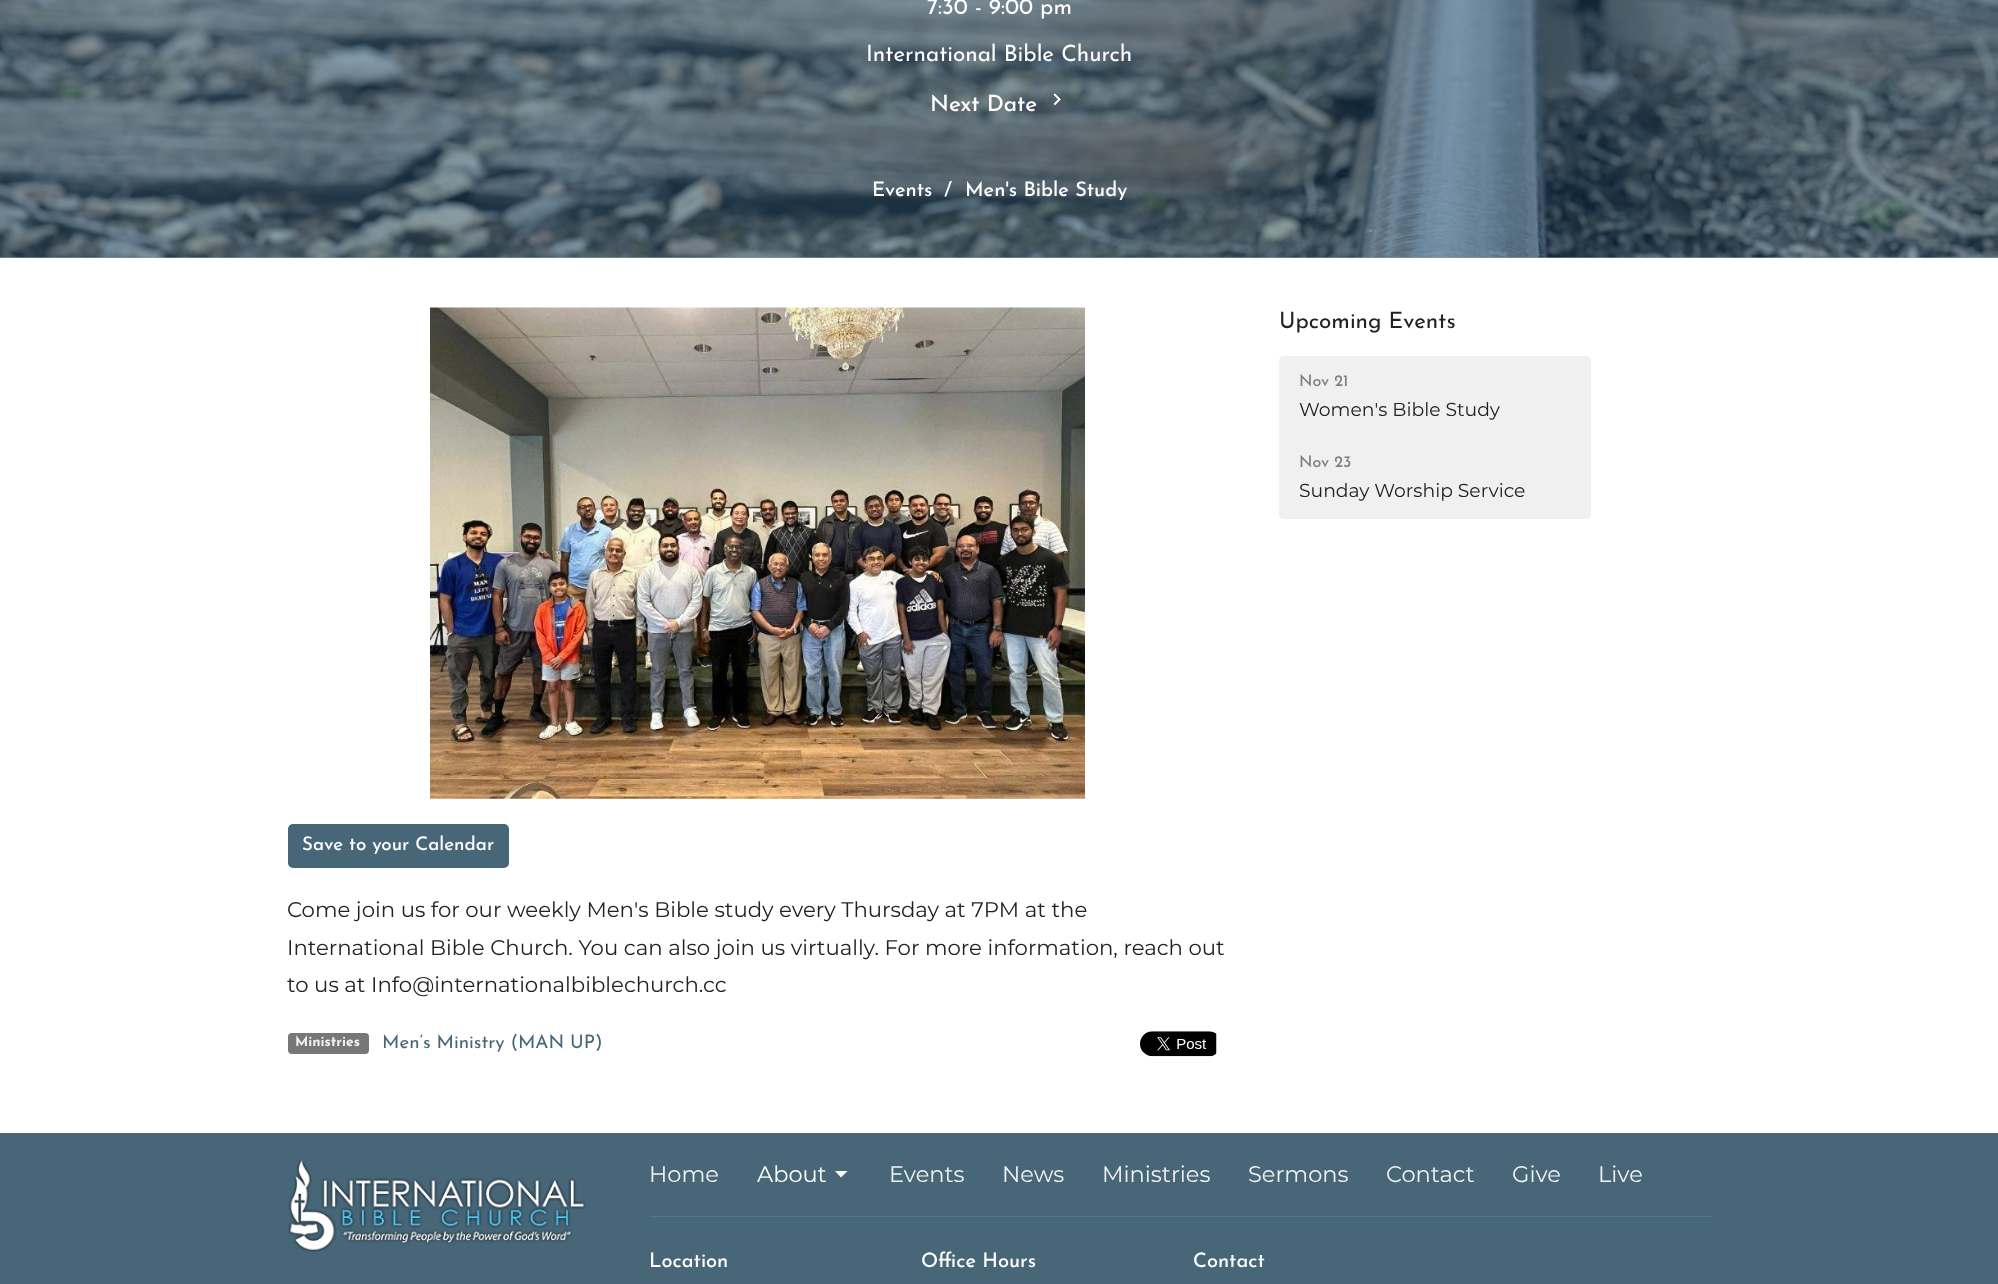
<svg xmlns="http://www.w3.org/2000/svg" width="1998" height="1284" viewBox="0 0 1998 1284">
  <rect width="100%" height="100%" fill="#fff"/>
  <path d="M0 257h1998v1H0z" fill="#899eaf"/>
  <image x="0" y="0" width="1998" height="258" href="img/1.png"/>
  <image x="1053" y="93" width="8" height="13" href="img/2.png"/>
  <path d="M1284 356H1586C1589 356 1591 358 1591 361V438H1279V361C1279 358 1281 356 1284 356Z" fill="#f0f0f0"/>
  <path d="M1279 436H1591V514C1591 517 1589 519 1586 519H1284C1281 519 1279 517 1279 514Z" fill="#f0f0f0"/>
  <image x="430" y="307" width="655" height="492" href="img/3.png"/>
  <rect x="288" y="824" width="221" height="44" rx="5" fill="#476678"/>
  <rect x="288" y="1033" width="81" height="21" rx="4" fill="#777"/>
  <image x="1140" y="1031" width="77" height="26" href="img/4.png"/>
  <path d="M0 1133h1998v151H0z" fill="#476678"/>
  <image x="288" y="1159" width="298" height="93" href="img/5.png"/>
  <path d="M835 1171L841 1177.5L847.5 1171Z" fill="#fff"/>
  <path d="M650 1216h1063v1H650z" fill="#52768b"/>
  <g font-family="Josefin Sans" font-size="22.5" fill="#fff">
    <text x="927" y="14">7:30 - 9:00 pm</text>
    <text x="866" y="61">International Bible Church</text>
  </g>
  <text x="930" y="111" font-family="Josefin Sans" font-size="22.5" font-weight="500" fill="#fff">Next Date</text>
  <g font-family="Josefin Sans" font-size="20" font-weight="500" fill="#fff">
    <text x="872" y="196">Events</text>
    <text x="944" y="196">/</text>
    <text x="965" y="196">Men's Bible Study</text>
  </g>
  <text x="1279" y="328" font-family="Josefin Sans" font-size="22.5" fill="#222">Upcoming Events</text>
  <text x="1299" y="386" font-family="Josefin Sans" font-size="16" font-weight="500" fill="#808080">Nov 21</text>
  <text x="1299" y="416" font-family="Montserrat" font-size="18.75" fill="#222">Women's Bible Study</text>
  <text x="1299" y="467" font-family="Josefin Sans" font-size="16" font-weight="500" fill="#808080">Nov 23</text>
  <text x="1299" y="497" font-family="Montserrat" font-size="18.75" fill="#222">Sunday Worship Service</text>
  <text x="302" y="850" font-family="Josefin Sans" font-size="18.75" font-weight="500" fill="#fff">Save to your Calendar</text>
  <g font-family="Montserrat" font-size="21.25" fill="#222">
    <text x="287" y="917">Come join us for our weekly Men's Bible study every Thursday at 7PM at the</text>
    <text x="287" y="955">International Bible Church. You can also join us virtually. For more information, reach out</text>
    <text x="287" y="992">to us at Info@internationalbiblechurch.cc</text>
  </g>
  <text x="295" y="1046" font-family="Josefin Sans" font-size="14" font-weight="bold" fill="#f1f1f1">Ministries</text>
  <text x="382" y="1048" font-family="Josefin Sans" font-size="18.75" fill="#476678">Men’s Ministry (MAN UP)</text>
  <text x="649" y="1182" font-family="Montserrat" font-size="22.5" fill="#f1f1f1">Home</text>
  <text x="757" y="1182" font-family="Montserrat" font-size="22.5" fill="#fff">About</text>
  <g font-family="Montserrat" font-size="22.5" fill="#f1f1f1">
    <text x="889" y="1182">Events</text>
    <text x="1002" y="1182">News</text>
    <text x="1102" y="1182">Ministries</text>
    <text x="1248" y="1182">Sermons</text>
    <text x="1386" y="1182">Contact</text>
    <text x="1512" y="1182">Give</text>
    <text x="1598" y="1182">Live</text>
  </g>
  <g font-family="Josefin Sans" font-size="20" font-weight="500" fill="#fff">
    <text x="649" y="1267">Location</text>
    <text x="921" y="1267">Office Hours</text>
    <text x="1193" y="1267">Contact</text>
  </g>
</svg>
